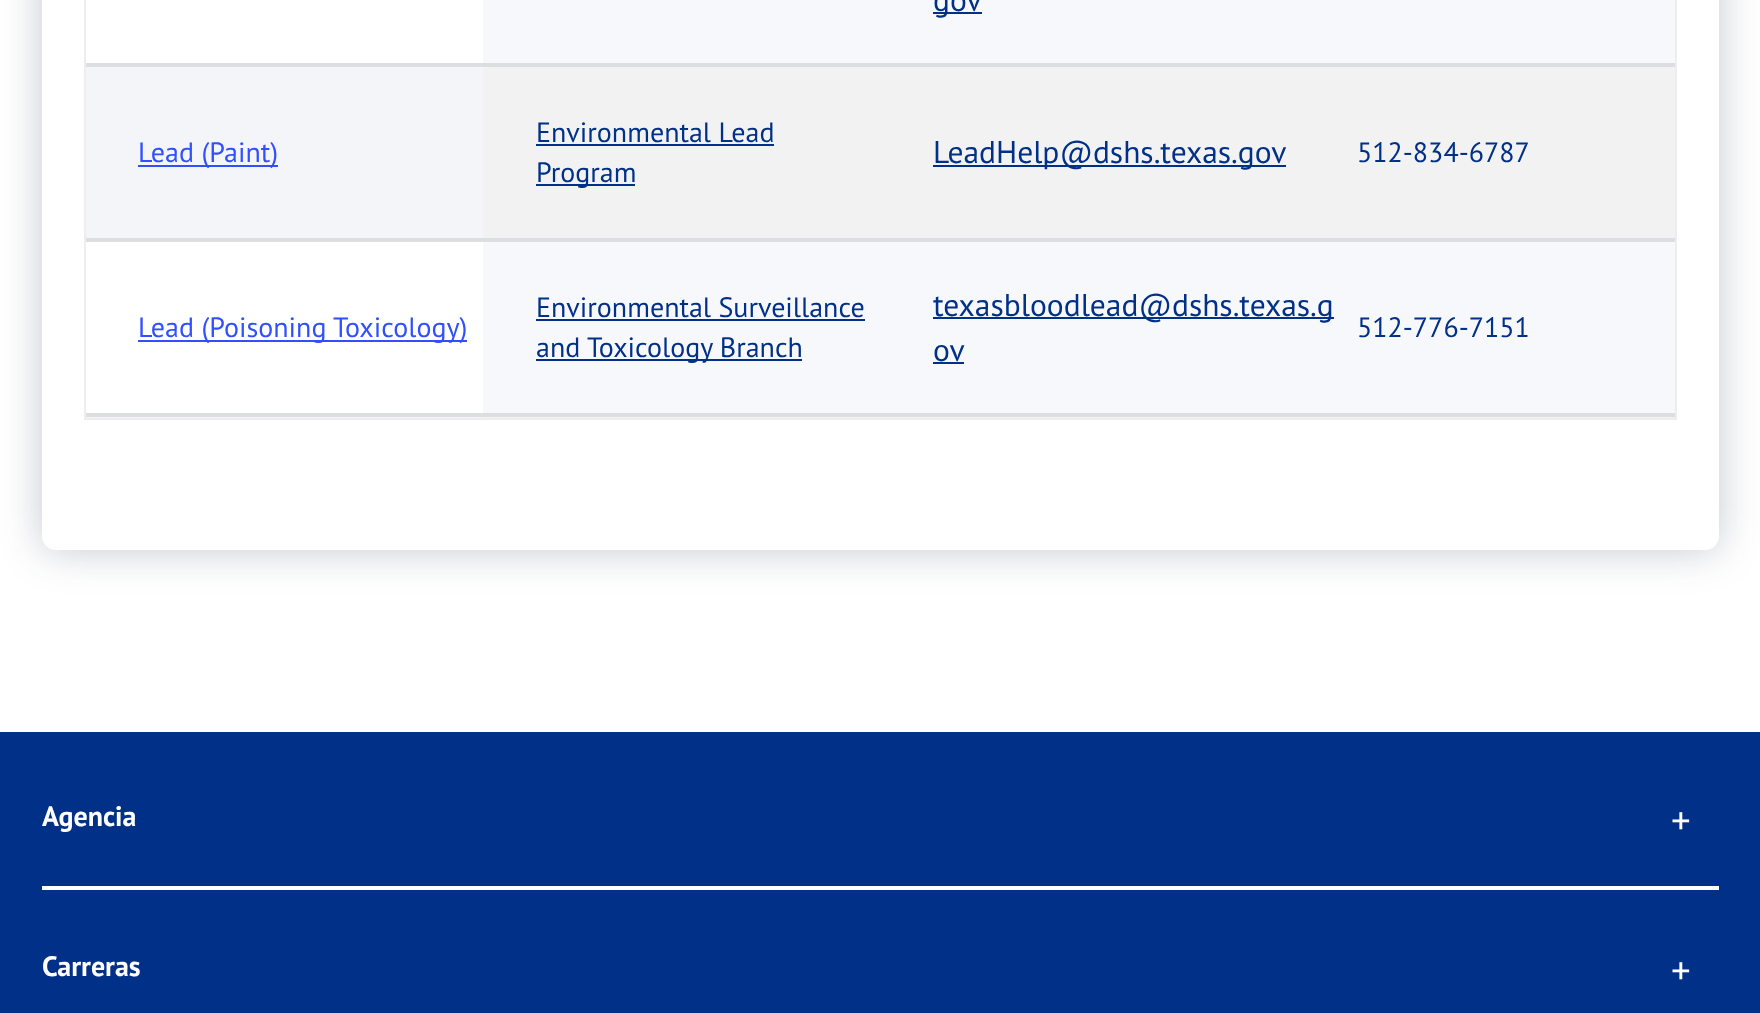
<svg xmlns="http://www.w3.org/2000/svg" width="1760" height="1013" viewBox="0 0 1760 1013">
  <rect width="100%" height="100%" fill="#fff"/>
  <rect x="42" y="-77" width="1677" height="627" rx="14" fill="#20294f42" filter="blur(21px)"/>
  <rect x="42" y="-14" width="1677" height="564" rx="14" fill="#fff"/>
  <path d="M84 0h1593v420H84z" fill="#ededed"/>
  <path d="M86 0h397v63H86z" fill="#fff"/>
  <path d="M483 0h1192v63H483z" fill="#f7f8fb"/>
  <path d="M933 12h49v2H933z" fill="#003087"/>
  <path d="M86 63h1589v4H86z" fill="#dcdee1"/>
  <path d="M86 67h397v171H86z" fill="#f4f5f9"/>
  <path d="M138 165h140v2H138z" fill="#304ffe"/>
  <path d="M483 67h1192v171H483z" fill="#f2f2f2"/>
  <path d="M536 144h238v2H536z" fill="#003087"/>
  <path d="M536 184h99v2H536z" fill="#003087"/>
  <path d="M933 165h353v2H933z" fill="#003087"/>
  <path d="M86 238h1589v4H86z" fill="#dcdee1"/>
  <path d="M86 242h397v171H86z" fill="#fff"/>
  <path d="M138 340h329v2H138z" fill="#304ffe"/>
  <path d="M483 242h1192v171H483z" fill="#f7f8fb"/>
  <path d="M536 319h329v2H536z" fill="#003087"/>
  <path d="M536 359h266v2H536z" fill="#003087"/>
  <path d="M933 317h401v2H933z" fill="#003087"/>
  <path d="M933 362h31v2H933z" fill="#003087"/>
  <path d="M86 413h1589v4H86z" fill="#dcdee1"/>
  <path d="M86 417h397v1H86z" fill="#f4f5f9"/>
  <path d="M483 417h1192v1H483z" fill="#f2f2f2"/>
  <path d="M0 732h1760v281H0z" fill="#003087"/>
  <path d="M42 886h1677v4H42z" fill="#fff"/>
  <text x="933" y="11" font-family="PT Sans" font-size="31.5" fill="#003087">gov</text>
  <text x="138" y="162" font-family="PT Sans" font-size="28" fill="#304ffe">Lead (Paint)</text>
  <g font-family="PT Sans" font-size="28" fill="#003087">
    <text x="536" y="142">Environmental Lead</text>
    <text x="536" y="182">Program</text>
  </g>
  <text x="933" y="163" font-family="PT Sans" font-size="31.5" fill="#003087">LeadHelp@dshs.texas.gov</text>
  <text x="1357" y="162" font-family="PT Sans" font-size="28" fill="#003087">512-834-6787</text>
  <text x="138" y="337" font-family="PT Sans" font-size="28" fill="#304ffe">Lead (Poisoning Toxicology)</text>
  <g font-family="PT Sans" font-size="28" fill="#003087">
    <text x="536" y="317">Environmental Surveillance</text>
    <text x="536" y="357">and Toxicology Branch</text>
  </g>
  <g font-family="PT Sans" font-size="31.5" fill="#003087">
    <text x="933" y="316">texasbloodlead@dshs.texas.g</text>
    <text x="933" y="361">ov</text>
  </g>
  <text x="1357" y="337" font-family="PT Sans" font-size="28" fill="#003087">512-776-7151</text>
  <text x="42" y="826" font-family="PT Sans" font-size="28" font-weight="bold" fill="#fff">Agencia</text>
  <text x="1671" y="834" font-family="PT Sans" font-size="39" fill="#fff">+</text>
  <text x="42" y="976" font-family="PT Sans" font-size="28" font-weight="bold" fill="#fff">Carreras</text>
  <text x="1671" y="984" font-family="PT Sans" font-size="39" fill="#fff">+</text>
</svg>
